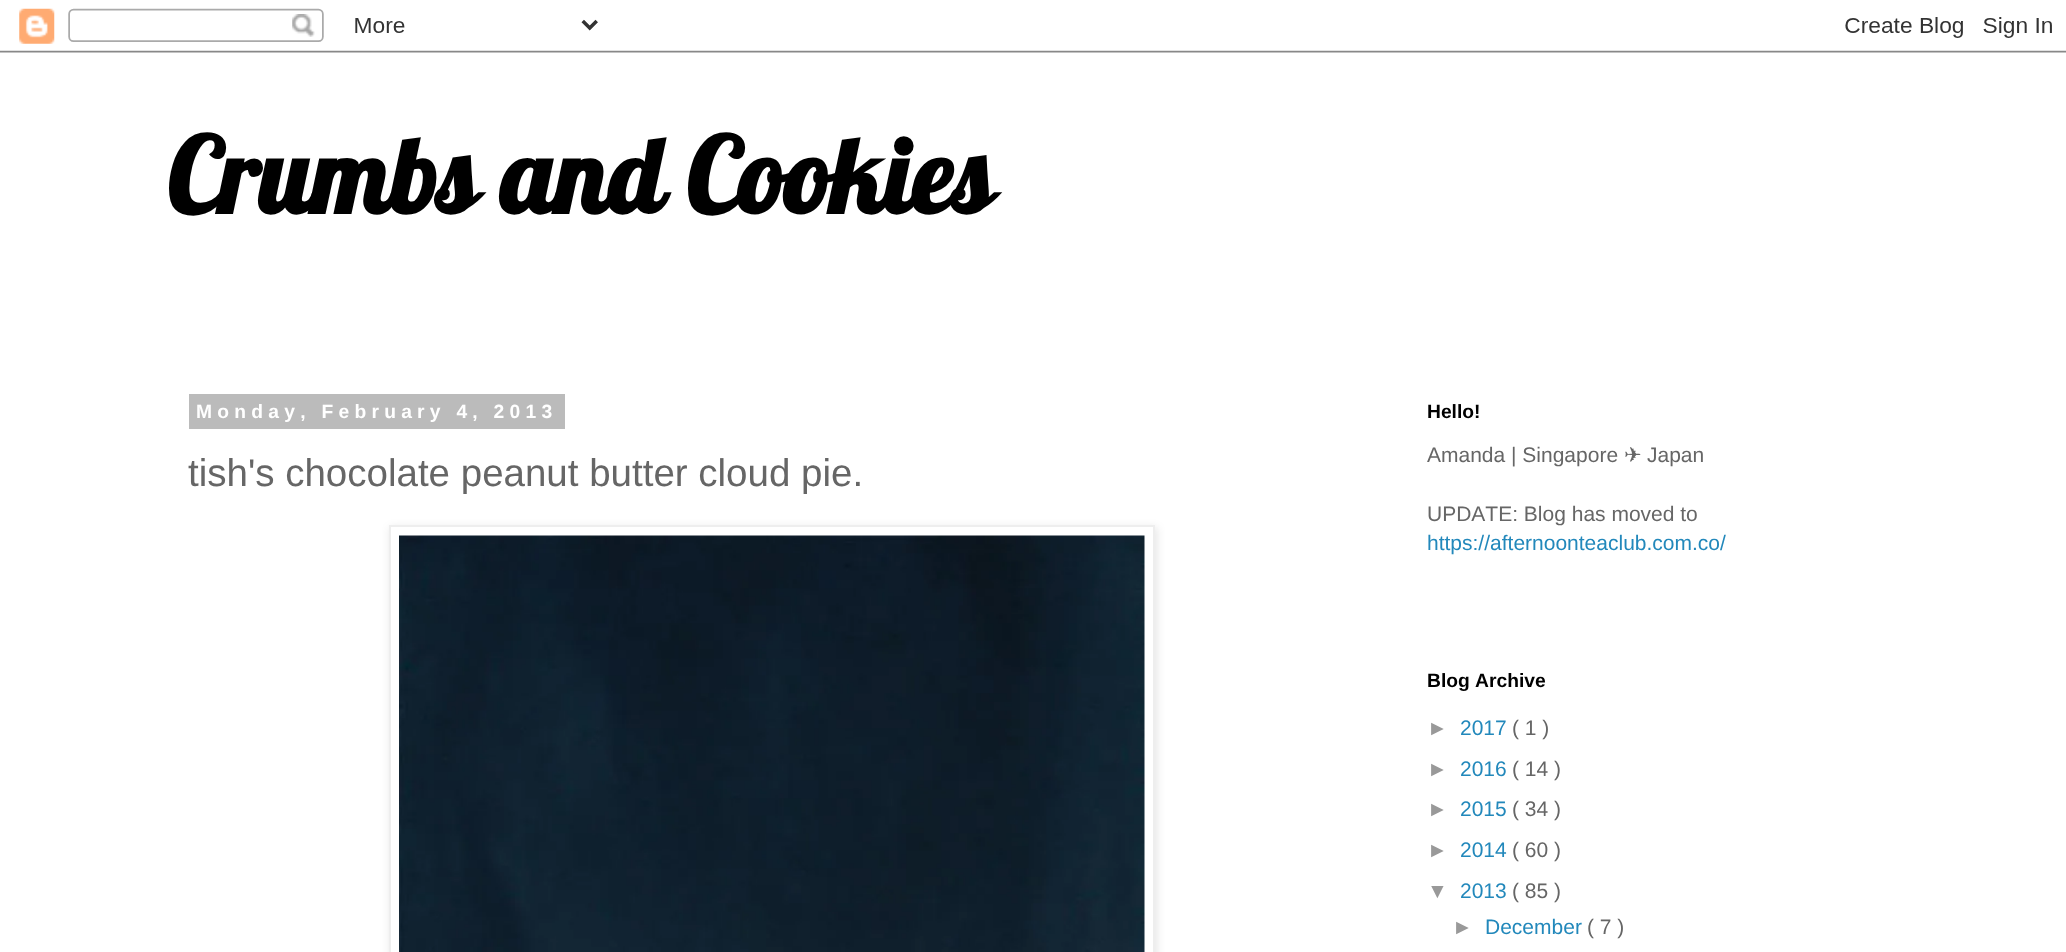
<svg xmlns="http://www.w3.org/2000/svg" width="2066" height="952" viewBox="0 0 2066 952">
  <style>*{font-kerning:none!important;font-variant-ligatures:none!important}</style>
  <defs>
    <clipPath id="clip1"><path d="M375 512H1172V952H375ZM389 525H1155V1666H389Z" clip-rule="evenodd"/></clipPath>
  </defs>
  <rect width="100%" height="100%" fill="#fff"/>
  <image x="0" y="8" width="2066" height="45" href="img/1.png"/>
  <path d="M189 394h376v35H189z" fill="#bbb"/>
  <g clip-path="url(#clip1)">
    <path d="M390 527h767v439H390z" fill="#0000001a" filter="blur(4.5px)"/>
  </g>
  <path d="M390 526h764v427H390z" fill="none" stroke="#eee" stroke-width="2"/>
  <image x="399" y="535" width="746" height="417" href="img/2.png"/>
  <text x="167" y="214" font-family="Lobster" font-size="105" font-weight="bold" fill="#000">Crumbs and</text>
  <text x="686" y="214" font-family="Lobster" font-size="105" font-weight="bold" fill="#000">Cookies</text>
  <text x="196" y="418" font-family="Liberation Sans" font-size="19.25" font-weight="bold" letter-spacing="5.25" fill="#fff">Monday, February 4, 2013</text>
  <text x="188" y="486" font-family="Liberation Sans" font-size="38.5" fill="#666">tish's chocolate peanut butter cloud pie.</text>
  <text x="1427" y="418" font-family="Liberation Sans" font-size="19.25" font-weight="bold" fill="#000">Hello!</text>
  <text x="1427" y="462" font-family="Liberation Sans" font-size="21" fill="#666">Amanda | Singapore</text>
  <text x="1624" y="462" font-family="DejaVu Sans" font-size="21" fill="#666">✈</text>
  <g font-family="Liberation Sans" font-size="21" fill="#666">
    <text x="1647" y="462">Japan</text>
    <text x="1427" y="521">UPDATE: Blog has moved to</text>
  </g>
  <text x="1427" y="550" font-family="Liberation Sans" font-size="21" fill="#28b">https://afternoonteaclub.com.co/</text>
  <text x="1427" y="687" font-family="Liberation Sans" font-size="19.25" font-weight="bold" fill="#000">Blog Archive</text>
  <text x="1427" y="735" font-family="Liberation Sans" font-size="21" fill="#999">►</text>
  <text x="1460" y="735" font-family="Liberation Sans" font-size="21" fill="#28b">2017</text>
  <text x="1512" y="735" font-family="Liberation Sans" font-size="21" fill="#666">( 1 )</text>
  <text x="1427" y="776" font-family="Liberation Sans" font-size="21" fill="#999">►</text>
  <text x="1460" y="776" font-family="Liberation Sans" font-size="21" fill="#28b">2016</text>
  <text x="1512" y="776" font-family="Liberation Sans" font-size="21" fill="#666">( 14 )</text>
  <text x="1427" y="816" font-family="Liberation Sans" font-size="21" fill="#999">►</text>
  <text x="1460" y="816" font-family="Liberation Sans" font-size="21" fill="#28b">2015</text>
  <text x="1512" y="816" font-family="Liberation Sans" font-size="21" fill="#666">( 34 )</text>
  <text x="1427" y="857" font-family="Liberation Sans" font-size="21" fill="#999">►</text>
  <text x="1460" y="857" font-family="Liberation Sans" font-size="21" fill="#28b">2014</text>
  <text x="1512" y="857" font-family="Liberation Sans" font-size="21" fill="#666">( 60 )</text>
  <text x="1427" y="898" font-family="Liberation Sans" font-size="21" fill="#999">▼</text>
  <text x="1460" y="898" font-family="Liberation Sans" font-size="21" fill="#28b">2013</text>
  <text x="1512" y="898" font-family="Liberation Sans" font-size="21" fill="#666">( 85 )</text>
  <text x="1452" y="934" font-family="Liberation Sans" font-size="21" fill="#999">►</text>
  <text x="1485" y="934" font-family="Liberation Sans" font-size="21" fill="#28b">December</text>
  <text x="1587" y="934" font-family="Liberation Sans" font-size="21" fill="#666">( 7 )</text>
</svg>
